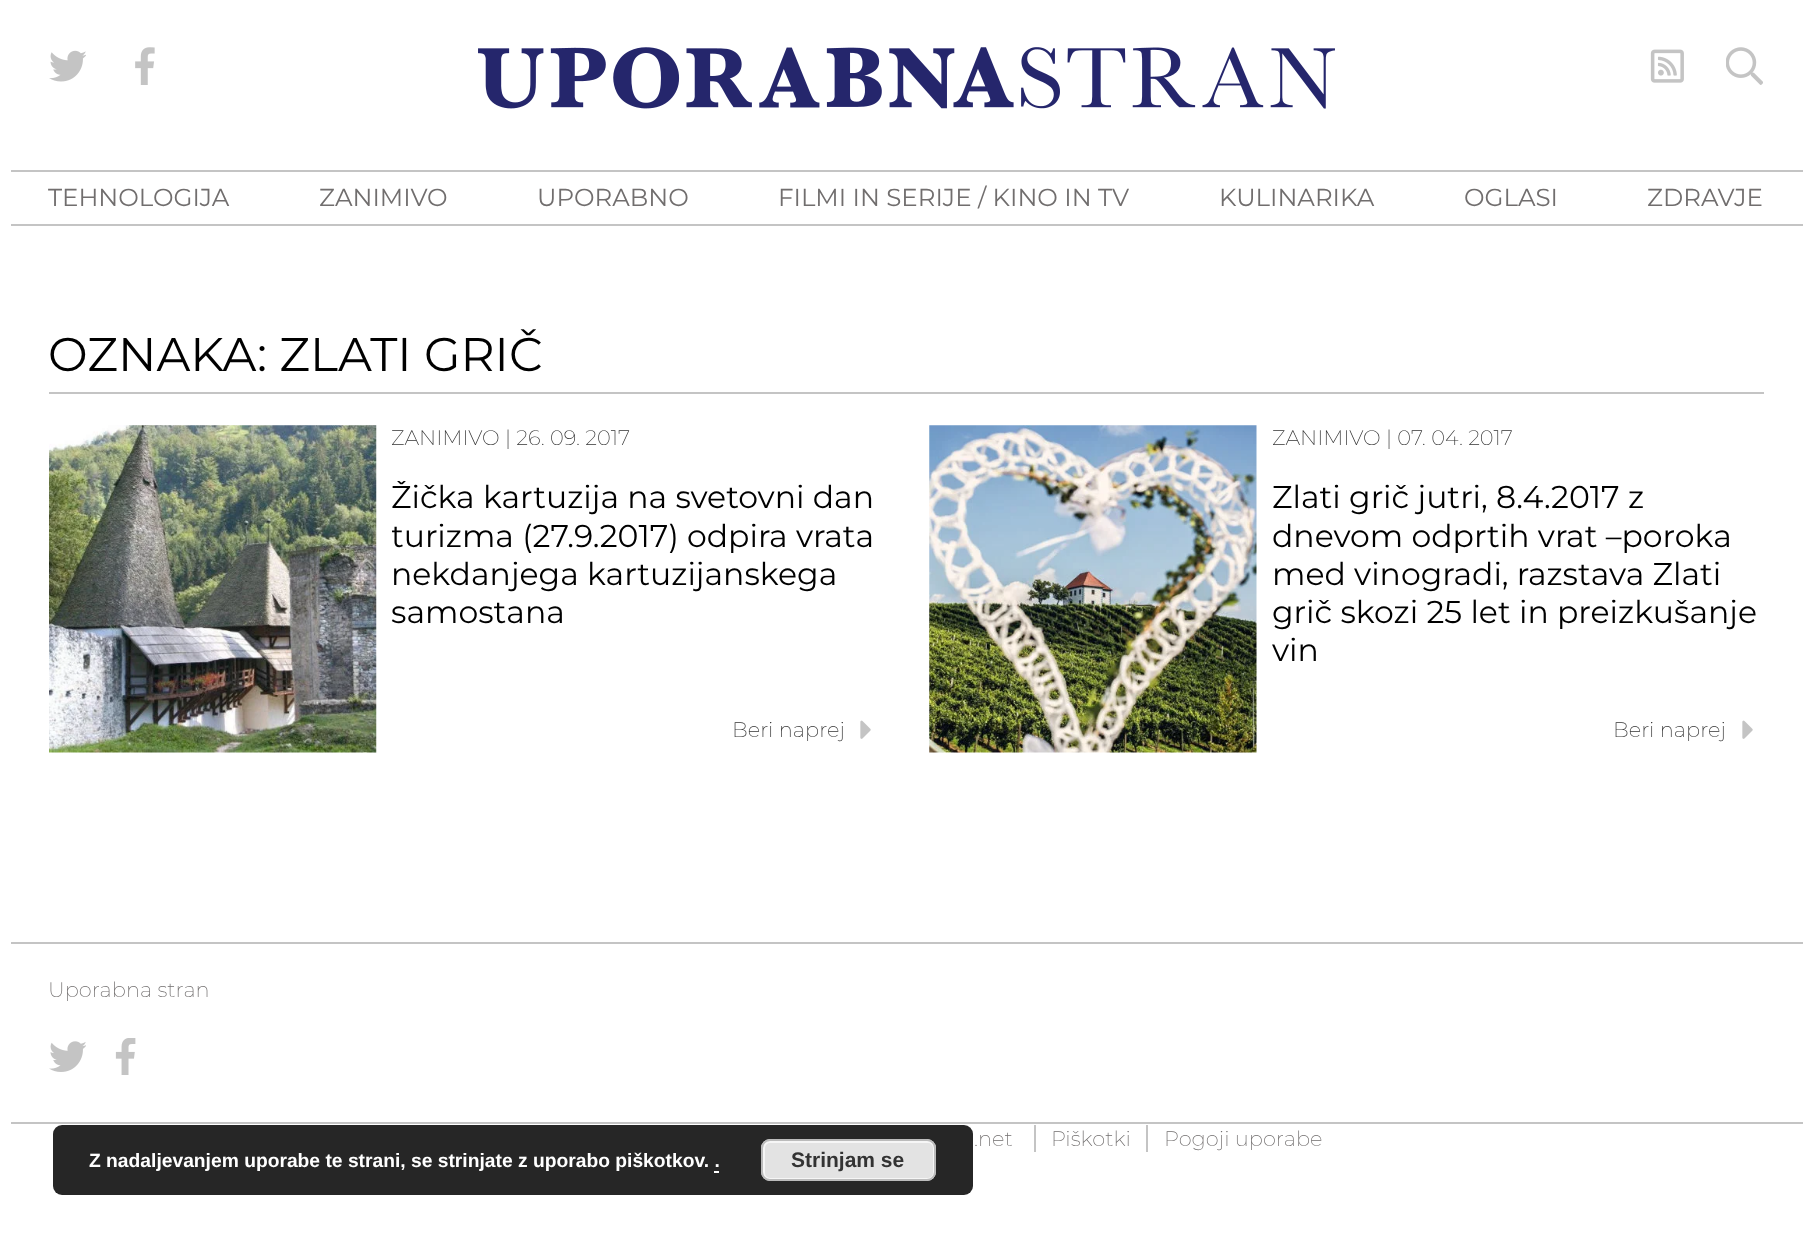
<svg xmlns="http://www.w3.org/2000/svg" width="1810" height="1247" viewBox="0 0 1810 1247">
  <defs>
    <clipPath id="clip1"><path d="M392 481h490v153H392z"/></clipPath>
  </defs>
  <rect width="100%" height="100%" fill="#fff"/>
  <image x="49" y="50" width="37" height="32" href="img/1.png"/>
  <image x="135" y="47" width="20" height="38" href="img/2.png"/>
  <image x="478" y="47" width="857" height="62" href="img/3.png"/>
  <image x="1650" y="49" width="34" height="34" href="img/4.png"/>
  <image x="1726" y="47" width="37" height="38" href="img/5.png"/>
  <path d="M11 170h1792v2H11z" fill="#c4c4c4"/>
  <path d="M11 224h1792v2H11z" fill="#c4c4c4"/>
  <path d="M49 392h1715v2H49z" fill="#c4c4c4"/>
  <image x="49" y="425" width="328" height="328" href="img/6.png"/>
  <image x="860" y="720" width="11" height="19" href="img/7.png"/>
  <image x="929" y="425" width="328" height="328" href="img/8.png"/>
  <image x="1742" y="720" width="11" height="19" href="img/7.png"/>
  <path d="M11 942h1792v2H11z" fill="#c4c4c4"/>
  <image x="49" y="1041" width="37" height="31" href="img/9.png"/>
  <image x="115" y="1038" width="21" height="37" href="img/10.png"/>
  <path d="M11 1122h1792v2H11z" fill="#c4c4c4"/>
  <path d="M1034 1125h2v27H1034z" fill="#c4c4c4"/>
  <path d="M1146 1125h2v27H1146z" fill="#c4c4c4"/>
  <rect x="53" y="1125" width="920" height="70" rx="9" fill="#000000d9"/>
  <rect x="761" y="1139" width="175" height="42" rx="9" fill="#e3e3e3"/>
  <rect x="764" y="1142" width="170" height="37" rx="6" fill="none" stroke="#f6f6f6" stroke-width="2"/>
  <rect x="762" y="1140" width="173" height="40" rx="8" fill="none" stroke="#bbb" stroke-width="2"/>
  <path d="M714 1171h5v2H714z" fill="#fff"/>
  <g font-family="Montserrat" font-size="24.5" fill="#716e6e">
    <text x="48" y="206">TEHNOLOGIJA</text>
    <text x="319" y="206">ZANIMIVO</text>
    <text x="537" y="206">UPORABNO</text>
    <text x="778" y="206">FILMI IN SERIJE / KINO IN TV</text>
    <text x="1219" y="206">KULINARIKA</text>
    <text x="1464" y="206">OGLASI</text>
    <text x="1647" y="206">ZDRAVJE</text>
  </g>
  <text x="48" y="371" font-family="Montserrat" font-size="47.25" fill="#000">OZNAKA: ZLATI GRIČ</text>
  <text x="391" y="445" font-family="Montserrat" font-size="21" font-weight="200" fill="#333">ZANIMIVO | 26. 09. 2017</text>
  <g clip-path="url(#clip1)">
    <g font-family="Montserrat" font-size="31.5" fill="#000">
      <text x="391" y="508">Žička kartuzija na svetovni dan</text>
      <text x="391" y="547">turizma (27.9.2017) odpira vrata</text>
    </g>
  </g>
  <g font-family="Montserrat" font-size="31.5" fill="#000">
    <text x="391" y="585">nekdanjega kartuzijanskega</text>
    <text x="391" y="623">samostana</text>
  </g>
  <g font-family="Montserrat" font-size="21" font-weight="200" fill="#333">
    <text x="732" y="737">Beri naprej</text>
    <text x="1272" y="445">ZANIMIVO | 07. 04. 2017</text>
  </g>
  <g font-family="Montserrat" font-size="31.5" fill="#000">
    <text x="1272" y="508">Zlati grič jutri, 8.4.2017 z</text>
    <text x="1272" y="547">dnevom odprtih vrat –poroka</text>
    <text x="1272" y="585">med vinogradi, razstava Zlati</text>
    <text x="1272" y="623">grič skozi 25 let in preizkušanje</text>
    <text x="1272" y="661">vin</text>
  </g>
  <text x="1613" y="737" font-family="Montserrat" font-size="21" font-weight="200" fill="#333">Beri naprej</text>
  <g font-family="Montserrat" font-size="21" font-weight="200" fill="#716e6e">
    <text x="48" y="997">Uporabna stran</text>
    <text x="974" y="1146">.net</text>
    <text x="1051" y="1146">Piškotki</text>
    <text x="1164" y="1146">Pogoji uporabe</text>
  </g>
  <text x="89" y="1167" font-family="Liberation Sans" font-size="19.25" font-weight="bold" fill="#fff">Z nadaljevanjem uporabe te strani, se strinjate z uporabo piškotkov. .</text>
  <text x="791" y="1167" font-family="Liberation Sans" font-size="21" font-weight="bold" fill="#333">Strinjam se</text>
</svg>
